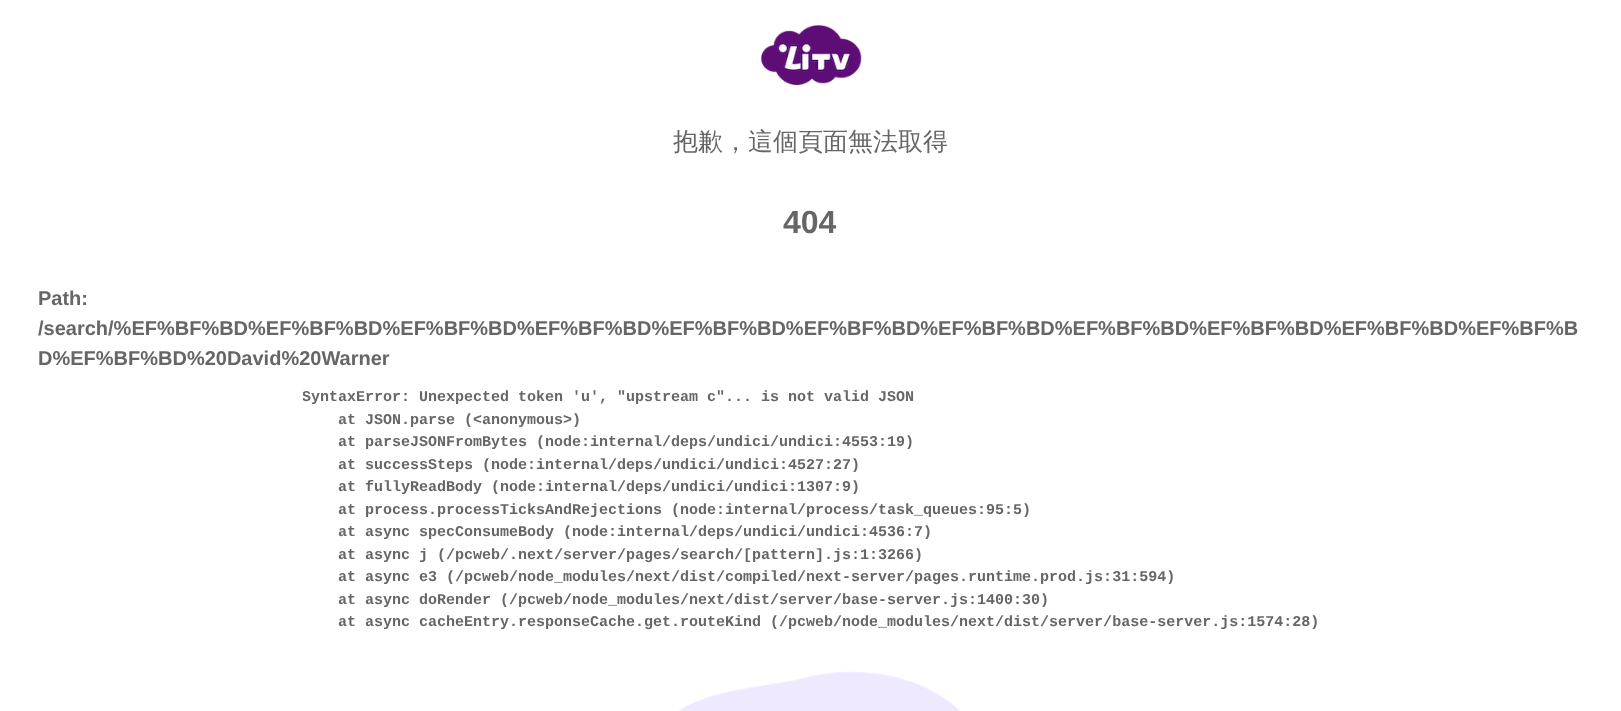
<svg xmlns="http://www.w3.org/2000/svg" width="1621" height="711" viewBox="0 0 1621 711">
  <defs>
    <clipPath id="clip1"><path d="M303 386h1016v248H303z"/></clipPath>
  </defs>
  <rect width="100%" height="100%" fill="#fff"/>
  <image x="761" y="25" width="101" height="60" href="img/1.png"/>
  <image x="679" y="671" width="281" height="40" href="img/2.png"/>
  <text x="673" y="150" font-family="WenQuanYi Zen Hei" font-size="25" font-weight="500" fill="#666">抱歉，這個頁面無法取得</text>
  <text x="783" y="233" font-family="Liberation Sans" font-size="32" font-weight="bold" fill="#666">404</text>
  <g font-family="Liberation Sans" font-size="20" font-weight="bold" fill="#666">
    <text x="38" y="305">Path:</text>
    <text x="38" y="335">/search/%EF%BF%BD%EF%BF%BD%EF%BF%BD%EF%BF%BD%EF%BF%BD%EF%BF%BD%EF%BF%BD%EF%BF%BD%EF%BF%BD%EF%BF%BD%EF%BF%B</text>
    <text x="38" y="365">D%EF%BF%BD%20David%20Warner</text>
  </g>
  <g clip-path="url(#clip1)">
    <text x="302" y="401" font-family="Liberation Mono" font-size="15" font-weight="bold" fill="#666">SyntaxError: Unexpected token 'u', "upstream c"... is not valid JSON</text>
  </g>
  <g font-family="Liberation Mono" font-size="15" font-weight="bold" fill="#666">
    <text x="338" y="424">at JSON.parse (&lt;anonymous&gt;)</text>
    <text x="338" y="446">at parseJSONFromBytes (node:internal/deps/undici/undici:4553:19)</text>
    <text x="338" y="469">at successSteps (node:internal/deps/undici/undici:4527:27)</text>
    <text x="338" y="491">at fullyReadBody (node:internal/deps/undici/undici:1307:9)</text>
    <text x="338" y="514">at process.processTicksAndRejections (node:internal/process/task_queues:95:5)</text>
    <text x="338" y="536">at async specConsumeBody (node:internal/deps/undici/undici:4536:7)</text>
    <text x="338" y="559">at async j (/pcweb/.next/server/pages/search/[pattern].js:1:3266)</text>
    <text x="338" y="581">at async e3 (/pcweb/node_modules/next/dist/compiled/next-server/pages.runtime.prod.js:31:594)</text>
    <text x="338" y="604">at async doRender (/pcweb/node_modules/next/dist/server/base-server.js:1400:30)</text>
    <text x="338" y="626">at async cacheEntry.responseCache.get.routeKind (/pcweb/node_modules/next/dist/server/base-server.js:1574:28)</text>
  </g>
</svg>
